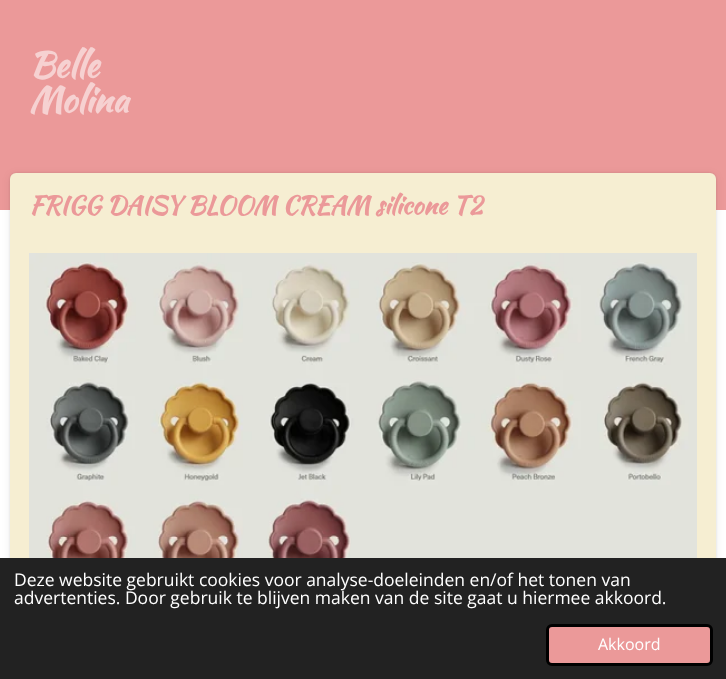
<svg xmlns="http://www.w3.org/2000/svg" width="726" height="679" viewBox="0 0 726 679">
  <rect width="100%" height="100%" fill="#fff"/>
  <path d="M0 0h726v210H0z" fill="#eb9999"/>
  <rect x="10" y="173" width="706" height="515" rx="6" fill="#0000001a" filter="blur(1px)"/>
  <rect x="10" y="175" width="706" height="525" rx="6" fill="#00000012" filter="blur(5px)"/>
  <rect x="10" y="173" width="706" height="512" rx="6" fill="#f6eed2"/>
  <image x="29" y="253" width="668" height="305" href="img/1.png"/>
  <path d="M0 558h726v121H0z" fill="#222"/>
  <rect x="547.5" y="625.5" width="164" height="39" rx="4.5" fill="#eb9999" stroke="#000" stroke-width="3"/>
  <g font-family="Kaushan Script" font-size="35" font-weight="bold" fill="#f6d1d1">
    <text x="29" y="77">Belle</text>
    <text x="29" y="112">Molina</text>
  </g>
  <text x="29" y="214" font-family="Kaushan Script" font-size="25" font-weight="bold" fill="#eb9999">FRIGG DAISY BLOOM CREAM silicone T2</text>
  <g font-family="Open Sans" font-size="17.5" fill="#fff">
    <text x="14" y="586">Deze website gebruikt cookies voor analyse-doeleinden en/of het tonen van</text>
    <text x="14" y="604">advertenties. Door gebruik te blijven maken van de site gaat u hiermee akkoord.</text>
  </g>
  <text x="598" y="650" font-family="Open Sans" font-size="16" fill="#fff">Akkoord</text>
</svg>
